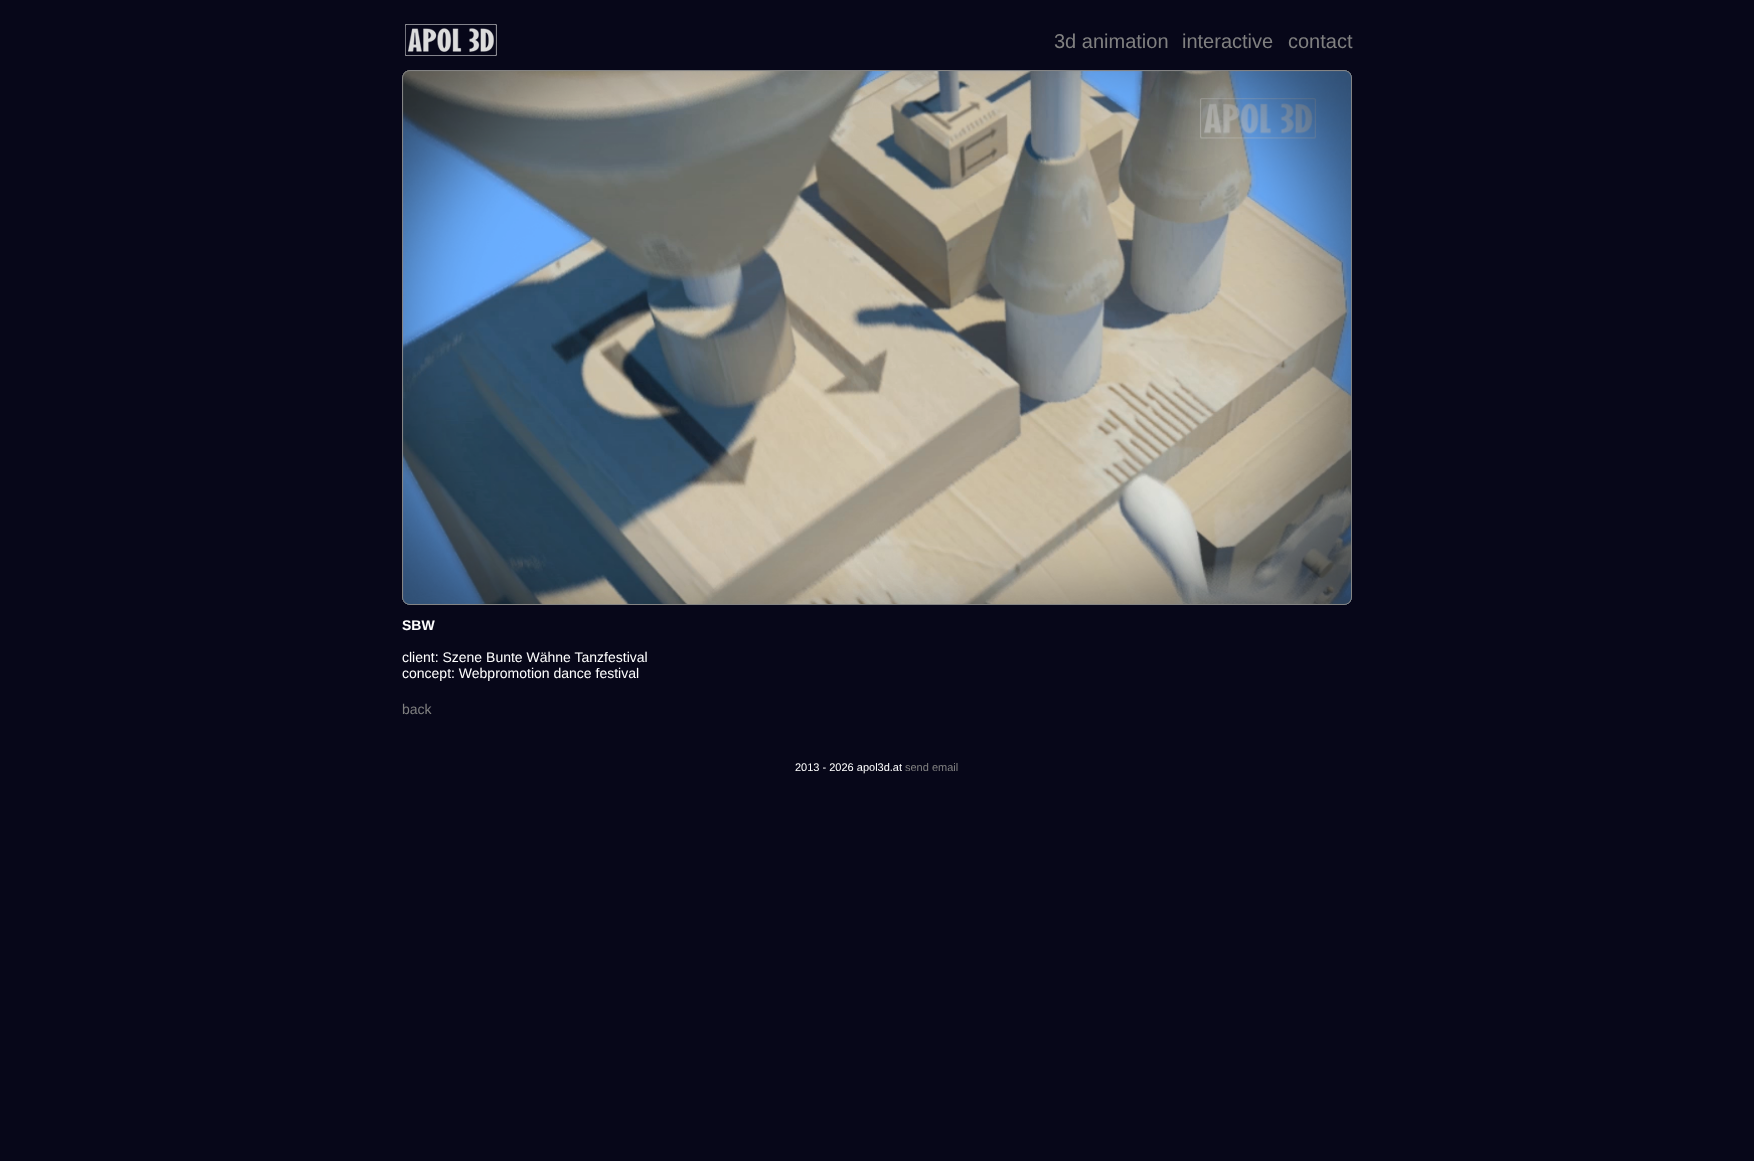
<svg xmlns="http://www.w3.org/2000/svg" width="1754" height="1161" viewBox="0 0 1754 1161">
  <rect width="100%" height="100%" fill="#070719"/>
  <image x="405" y="24" width="92" height="32" href="img/1.png"/>
  <image x="402" y="70" width="950" height="535" href="img/2.png"/>
  <g font-family="Liberation Sans" font-size="20" fill="#808080">
    <text x="1054" y="48">3d animation</text>
    <text x="1182" y="48">interactive</text>
    <text x="1288" y="48">contact</text>
  </g>
  <text x="402" y="630" font-family="Liberation Sans" font-size="14" font-weight="bold" fill="#fff">SBW</text>
  <g font-family="Liberation Sans" font-size="14" fill="#fff">
    <text x="402" y="662">client: Szene Bunte Wähne Tanzfestival</text>
    <text x="402" y="678">concept: Webpromotion dance festival</text>
  </g>
  <text x="402" y="714" font-family="Liberation Sans" font-size="14" fill="#808080">back</text>
  <text x="795" y="771" font-family="Liberation Sans" font-size="11" fill="#fff">2013 - 2026 apol3d.at</text>
  <text x="905" y="771" font-family="Liberation Sans" font-size="11" fill="#808080">send email</text>
</svg>
